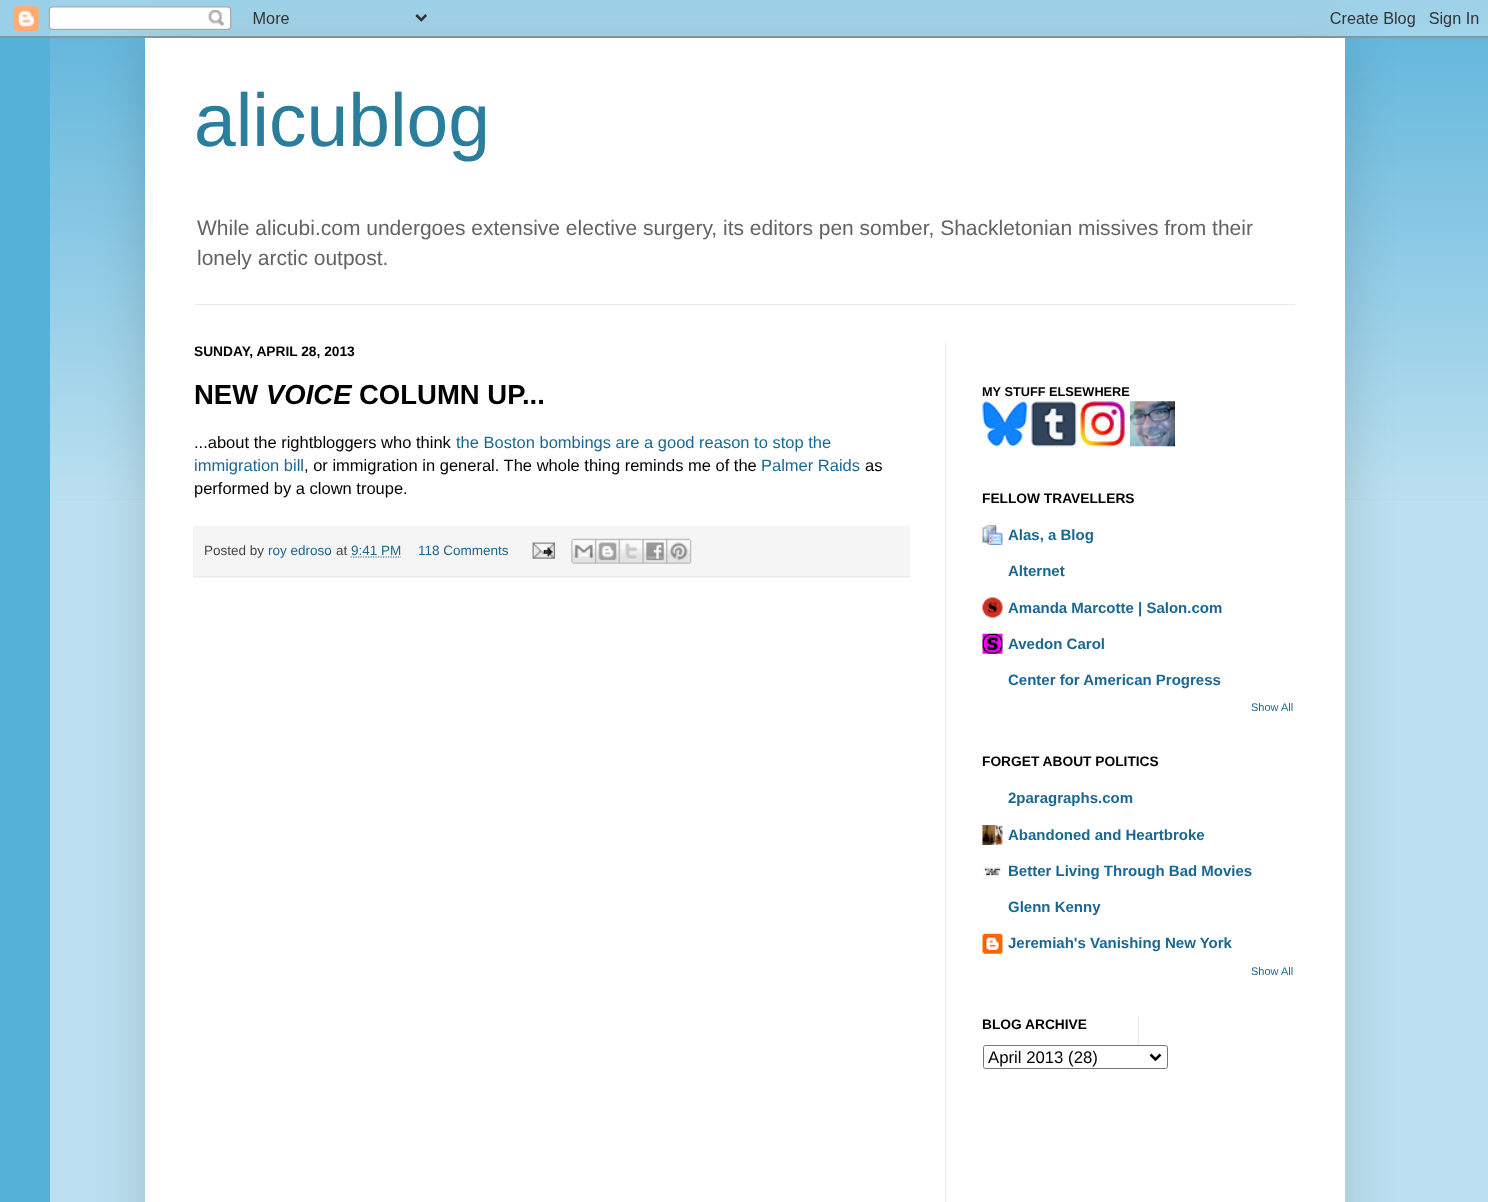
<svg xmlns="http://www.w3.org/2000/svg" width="1488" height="1202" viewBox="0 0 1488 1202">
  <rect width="100%" height="100%" fill="#56b1d9"/>
  <image x="50" y="0" width="1438" height="500" href="img/2.png"/>
  <path d="M50 500h1438v702H50z" fill="#bce0f1"/>
  <path d="M145 38h1200v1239H145z" fill="#00000026" filter="blur(25px)"/>
  <image x="0" y="0" width="1488" height="38" href="img/1.png"/>
  <path d="M145 38h1200v1164H145z" fill="#fff"/>
  <path d="M195 304h1100v1H195z" fill="#e9e9e9"/>
  <path d="M945 343h1v859H945z" fill="#e9e9e9"/>
  <path d="M193 526h717v52H193z" fill="#f5f5f5"/>
  <path d="M193 576h717v1H193z" fill="#e9e9e9"/>
  <path d="M350.5 557H401" fill="none" stroke="#1a6791" stroke-width="1.2" stroke-dasharray="1.25 1.25"/>
  <image x="532" y="542" width="23" height="17" href="img/3.png"/>
  <image x="571" y="538" width="26" height="26" href="img/4.png"/>
  <image x="595" y="538" width="25" height="26" href="img/5.png"/>
  <image x="618" y="538" width="26" height="26" href="img/6.png"/>
  <image x="642" y="538" width="26" height="26" href="img/7.png"/>
  <image x="666" y="538" width="26" height="26" href="img/8.png"/>
  <image x="982" y="401" width="46" height="46" href="img/9.png"/>
  <image x="1031" y="401" width="46" height="46" href="img/10.png"/>
  <image x="1080" y="401" width="45" height="46" href="img/11.png"/>
  <image x="1130" y="401" width="45" height="46" href="img/12.png"/>
  <image x="982" y="525" width="21" height="20" href="img/13.png"/>
  <image x="982" y="597" width="21" height="21" href="img/14.png"/>
  <image x="982" y="633" width="21" height="21" href="img/15.png"/>
  <image x="982" y="825" width="21" height="20" href="img/16.png"/>
  <image x="982" y="864" width="19" height="16" href="img/17.png"/>
  <image x="982" y="933" width="21" height="21" href="img/18.png"/>
  <rect x="983.5" y="1045.5" width="184" height="23" rx="2" fill="none" stroke="#767676"/>
  <path d="M1150.5 1054.5L1155.5 1059.5L1160.5 1054.5" fill="none" stroke="#000" stroke-width="2.5"/>
  <path d="M1138 1016h1v29H1138z" fill="#e9e9e9"/>
  <text x="194" y="146" font-family="Liberation Sans" font-size="75" fill="#2a7d9b">alicublog</text>
  <g font-family="Liberation Sans" font-size="21" fill="#636363">
    <text x="197" y="235">While alicubi.com undergoes extensive elective surgery, its editors pen somber, Shackletonian missives from their</text>
    <text x="197" y="265">lonely arctic outpost.</text>
  </g>
  <text x="194" y="356" font-family="Liberation Sans" font-size="13.75" font-weight="bold" fill="#000">SUNDAY, APRIL 28, 2013</text>
  <text x="194" y="404" font-family="Liberation Sans" font-size="27.5" font-weight="bold" fill="#000">NEW</text>
  <text x="266" y="404" font-family="Liberation Sans" font-size="27.5" font-weight="bold" font-style="italic" fill="#000">VOICE</text>
  <text x="359" y="404" font-family="Liberation Sans" font-size="27.5" font-weight="bold" fill="#000">COLUMN UP...</text>
  <text x="194" y="448" font-family="Liberation Sans" font-size="16.5" fill="#000">...about the rightbloggers who think</text>
  <g font-family="Liberation Sans" font-size="16.5" fill="#1a6791">
    <text x="456" y="448">the Boston bombings are a good reason to stop the</text>
    <text x="194" y="471">immigration bill</text>
  </g>
  <text x="304" y="471" font-family="Liberation Sans" font-size="16.5" fill="#000">, or immigration in general. The whole thing reminds me of the</text>
  <text x="761" y="471" font-family="Liberation Sans" font-size="16.5" fill="#1a6791">Palmer Raids</text>
  <g font-family="Liberation Sans" font-size="16.5" fill="#000">
    <text x="865" y="471">as</text>
    <text x="194" y="494">performed by a clown troupe.</text>
  </g>
  <text x="204" y="555" font-family="Liberation Sans" font-size="13.5" fill="#464646">Posted by</text>
  <text x="268" y="555" font-family="Liberation Sans" font-size="13.5" fill="#1a6791">roy edroso</text>
  <text x="336" y="555" font-family="Liberation Sans" font-size="13.5" fill="#464646">at</text>
  <g font-family="Liberation Sans" font-size="13.5" fill="#1a6791">
    <text x="351" y="555">9:41 PM</text>
    <text x="418" y="555">118 Comments</text>
  </g>
  <text x="982" y="396" font-family="Liberation Sans" font-size="12.75" font-weight="bold" fill="#000">MY STUFF ELSEWHERE</text>
  <text x="982" y="503" font-family="Liberation Sans" font-size="13.75" font-weight="bold" fill="#000">FELLOW TRAVELLERS</text>
  <g font-family="Liberation Sans" font-size="15" font-weight="bold" fill="#1a6791">
    <text x="1008" y="540">Alas, a Blog</text>
    <text x="1008" y="576">Alternet</text>
    <text x="1008" y="613">Amanda Marcotte | Salon.com</text>
    <text x="1008" y="649">Avedon Carol</text>
    <text x="1008" y="685">Center for American Progress</text>
  </g>
  <text x="1251" y="711" font-family="Liberation Sans" font-size="11" fill="#1a6791">Show All</text>
  <text x="982" y="766" font-family="Liberation Sans" font-size="13.75" font-weight="bold" fill="#000">FORGET ABOUT POLITICS</text>
  <g font-family="Liberation Sans" font-size="15" font-weight="bold" fill="#1a6791">
    <text x="1008" y="803">2paragraphs.com</text>
    <text x="1008" y="840">Abandoned and Heartbroke</text>
    <text x="1008" y="876">Better Living Through Bad Movies</text>
    <text x="1008" y="912">Glenn Kenny</text>
    <text x="1008" y="948">Jeremiah's Vanishing New York</text>
  </g>
  <text x="1251" y="975" font-family="Liberation Sans" font-size="11" fill="#1a6791">Show All</text>
  <text x="982" y="1029" font-family="Liberation Sans" font-size="13.75" font-weight="bold" fill="#000">BLOG ARCHIVE</text>
  <text x="988" y="1063" font-family="Liberation Sans" font-size="16.75" fill="#000">April 2013 (28)</text>
</svg>
